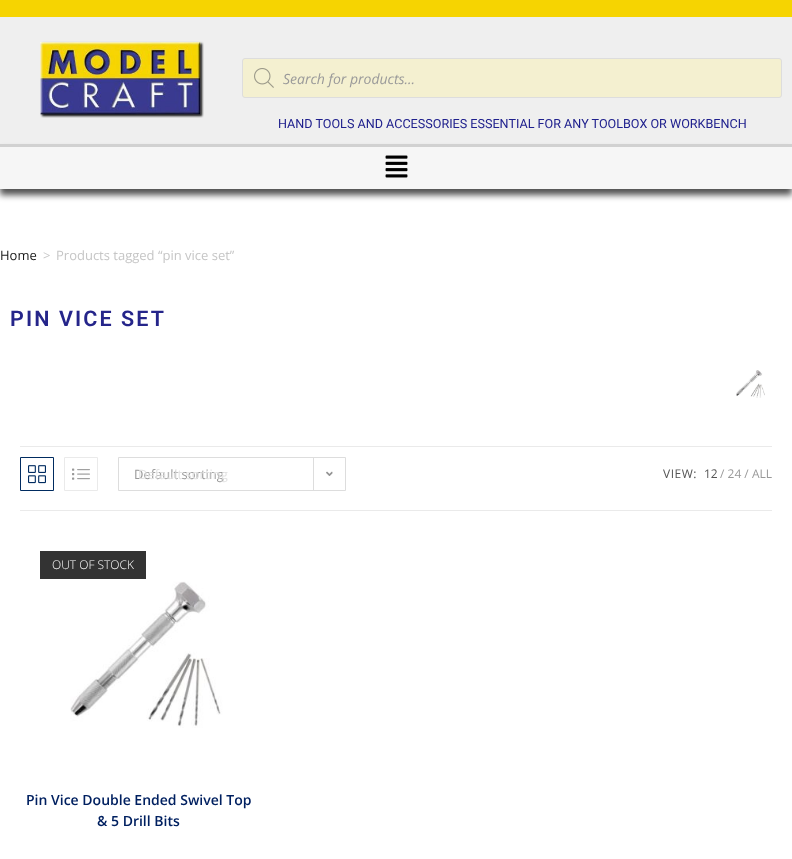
<svg xmlns="http://www.w3.org/2000/svg" width="792" height="859" viewBox="0 0 792 859">
  <rect width="100%" height="100%" fill="#fff"/>
  <path d="M0 0h792v17H0z" fill="#f6d401"/>
  <path d="M0 17h792v127H0z" fill="#efefef"/>
  <image x="40" y="41" width="164" height="77" href="img/1.png"/>
  <rect x="242.5" y="58.5" width="539" height="39" rx="2.5" fill="#f4f0d0" stroke="#ddd"/>
  <image x="254" y="68" width="20" height="20" href="img/2.png"/>
  <path d="M0 150h792v45H0z" fill="#000000ad" filter="blur(3px)"/>
  <path d="M0 147h792v42H0z" fill="#f6f6f6"/>
  <path d="M0 144h792v3H0z" fill="#d1d1d1"/>
  <image x="385" y="155" width="23" height="23" href="img/3.png"/>
  <image x="736" y="370" width="29" height="28" href="img/4.png"/>
  <path d="M20 446h752v1H20z" fill="#eaeaea"/>
  <path d="M20 510h752v1H20z" fill="#eaeaea"/>
  <path d="M20.5 457.5h33v33H20.5z" fill="none" stroke="#002b60"/>
  <image x="28" y="465" width="18" height="19" href="img/5.png"/>
  <path d="M64.5 457.5h33v33H64.5z" fill="none" stroke="#eaeaea"/>
  <image x="72" y="468" width="18" height="12" href="img/6.png"/>
  <path d="M118.5 457.5h227v33H118.5z" fill="none" stroke="#ddd"/>
  <path d="M313 458h1v32H313z" fill="#ddd"/>
  <image x="326" y="471" width="7" height="5" href="img/7.png"/>
  <path d="M333 472L337 476L341 472" fill="none" stroke="#fff" stroke-width="2"/>
  <image x="20" y="531" width="237" height="238" href="img/8.png"/>
  <path d="M40 551h106v28H40z" fill="#333"/>
  <text x="283" y="84" font-family="Open Sans" font-size="14" font-style="italic" fill="#999">Search for products...</text>
  <text x="278" y="128" font-family="Roboto" font-size="12.6" fill="#1f208d">HAND TOOLS AND ACCESSORIES ESSENTIAL FOR ANY TOOLBOX OR WORKBENCH</text>
  <text x="0" y="260" font-family="Open Sans" font-size="13" fill="#191919">Home</text>
  <g font-family="Open Sans" font-size="13" fill="#c6c6c6">
    <text x="43" y="260">&gt;</text>
    <text x="56" y="260">Products tagged “pin vice set”</text>
  </g>
  <text x="10" y="326" font-family="Roboto" font-size="21.5" font-weight="600" letter-spacing="2.1" fill="#25258a">PIN VICE SET</text>
  <text x="134" y="479" font-family="Open Sans" font-size="13" fill="#999">Default sorting</text>
  <text x="138" y="479" font-family="Open Sans" font-size="13" fill="#e2e2e2">Default sorting</text>
  <text x="663" y="478" font-family="Open Sans" font-size="12" letter-spacing="0.5" fill="#555">VIEW:</text>
  <text x="704" y="478" font-family="Open Sans" font-size="12" fill="#555">12</text>
  <text x="720" y="478" font-family="Open Sans" font-size="12" fill="#999">/ 24 / ALL</text>
  <text x="52" y="569" font-family="Open Sans" font-size="12" font-weight="300" fill="#fff">OUT OF STOCK</text>
  <g font-family="Open Sans" font-size="14" font-weight="600" fill="#002060">
    <text x="26" y="805">Pin Vice Double Ended Swivel Top</text>
    <text x="97" y="826">&amp; 5 Drill Bits</text>
  </g>
</svg>
